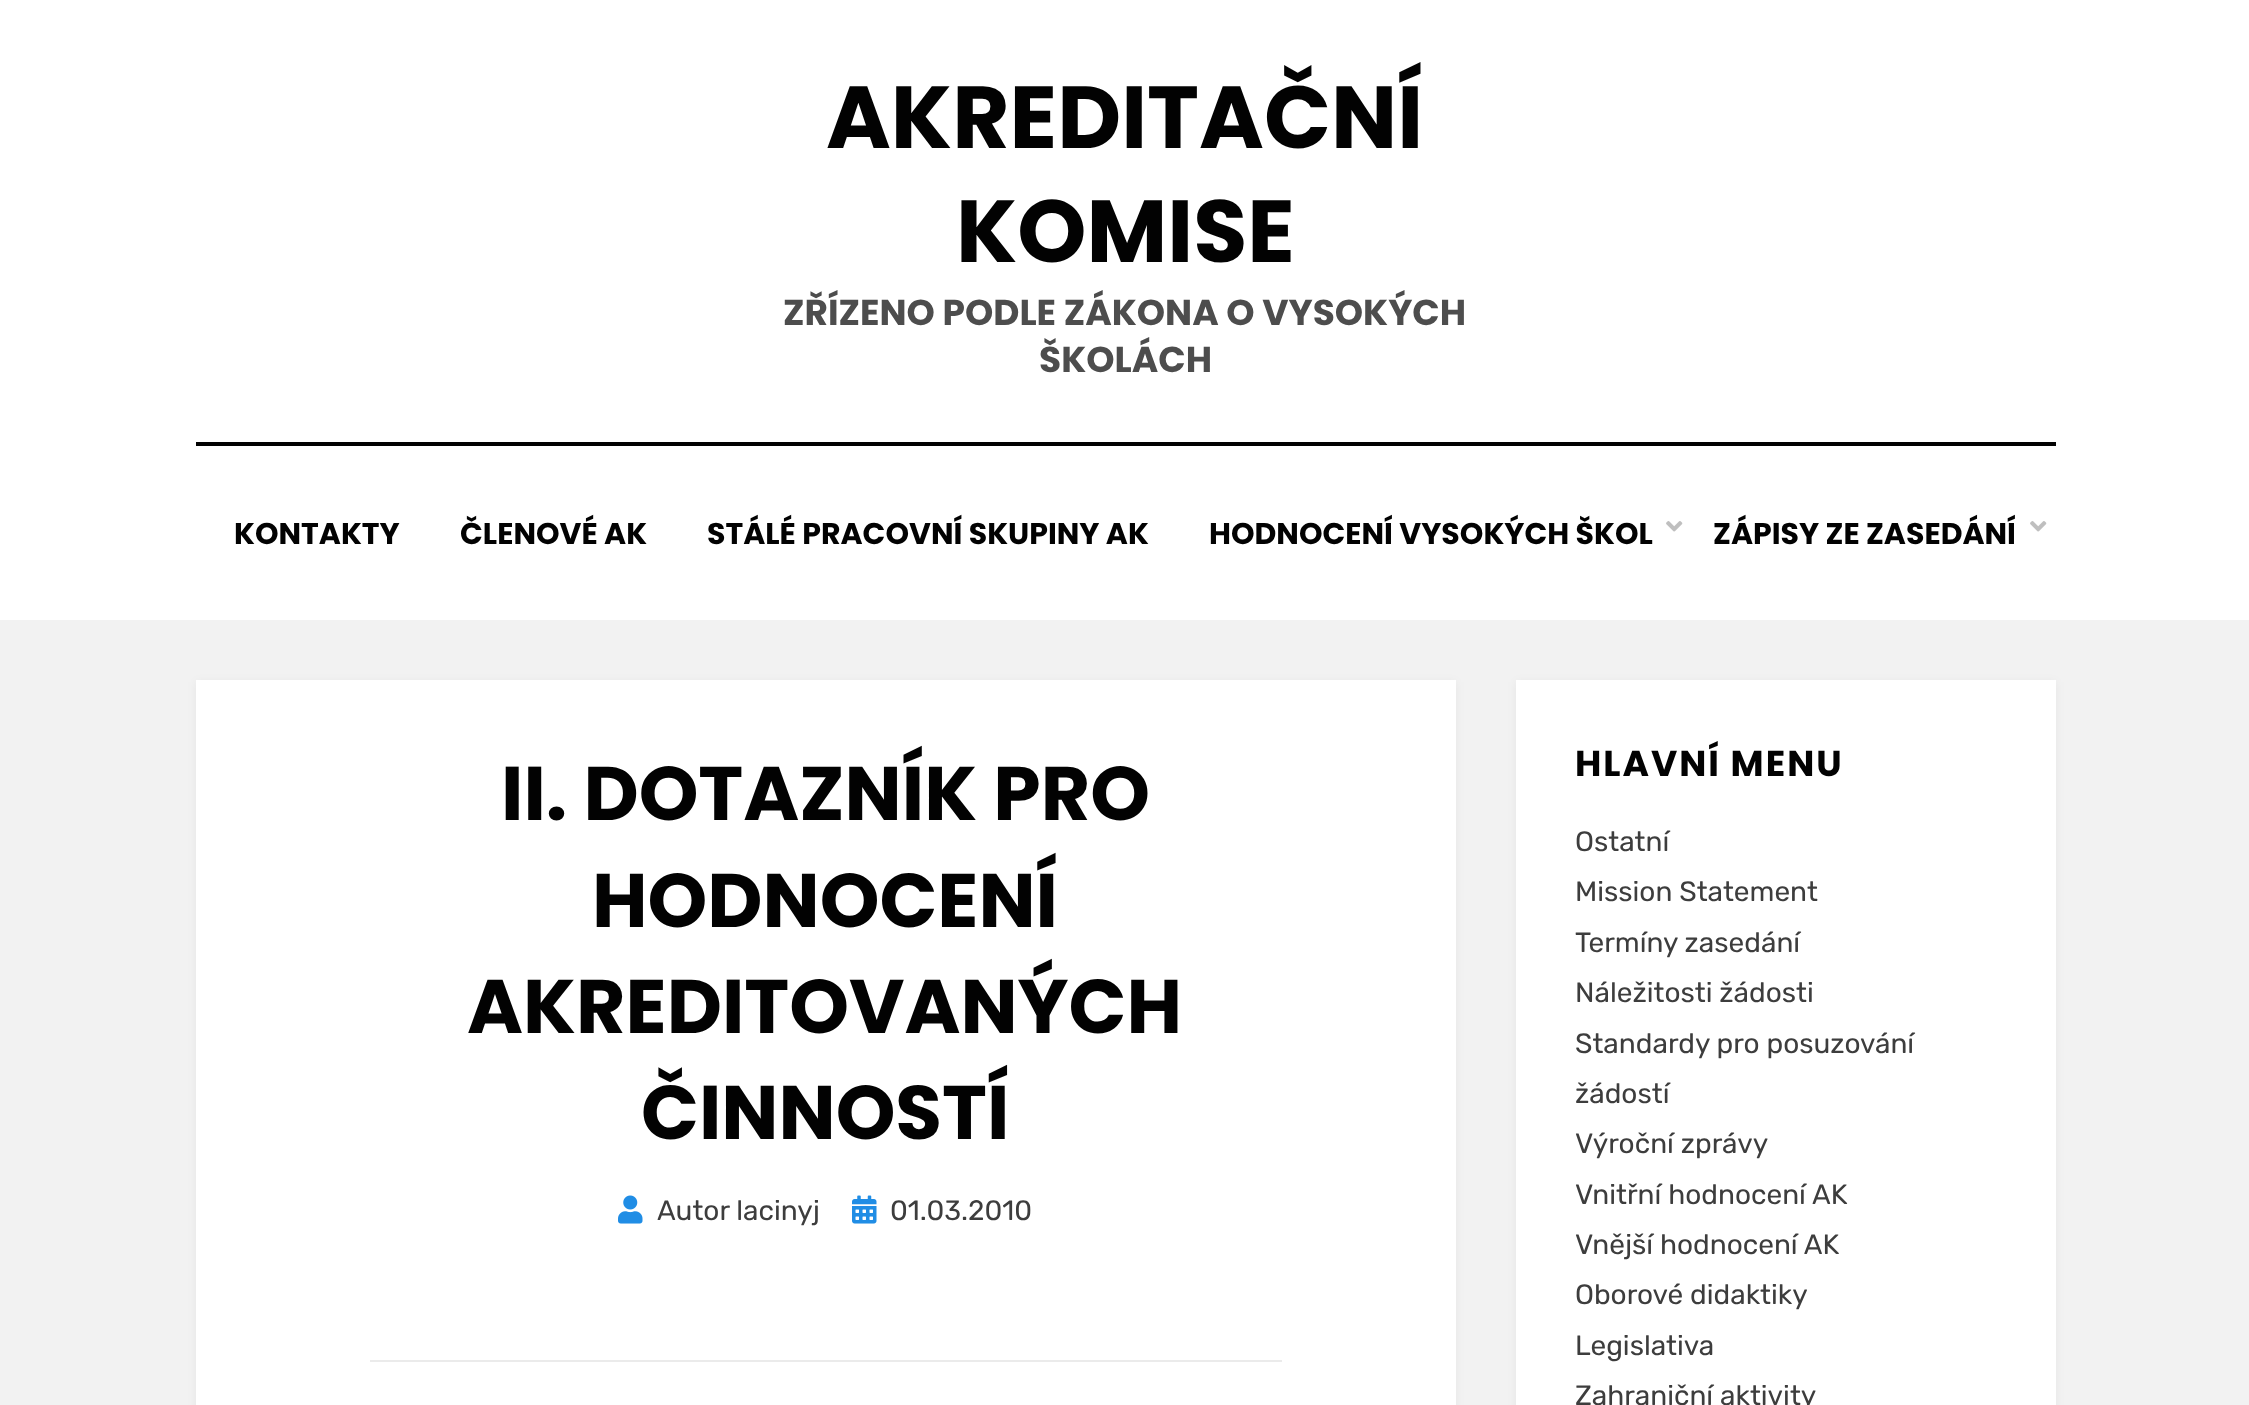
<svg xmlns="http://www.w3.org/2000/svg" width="2249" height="1405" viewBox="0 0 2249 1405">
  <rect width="100%" height="100%" fill="#f2f2f2"/>
  <path d="M0 0h2249v620H0z" fill="#fff"/>
  <path d="M196 442h1860v4H196z" fill="#020202"/>
  <image x="1666" y="521" width="17" height="11" href="img/1.png"/>
  <image x="2030" y="521" width="17" height="11" href="img/1.png"/>
  <path d="M196 682h1260v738H196z" fill="#0000010d" filter="blur(5px)"/>
  <path d="M196 680h1260v725H196z" fill="#fff"/>
  <image x="618" y="1195" width="25" height="29" href="img/2.png"/>
  <image x="852" y="1195" width="25" height="29" href="img/3.png"/>
  <path d="M370 1360h912v2H370z" fill="#ebebeb"/>
  <path d="M1516 682h540v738H1516z" fill="#0000010d" filter="blur(5px)"/>
  <path d="M1516 680h540v725H1516z" fill="#fff"/>
  <g font-family="Poppins" font-size="88" font-weight="bold" fill="#020202">
    <text x="826" y="148">AKREDITAČNÍ</text>
    <text x="956" y="262">KOMISE</text>
  </g>
  <g font-family="Poppins" font-size="36" font-weight="bold" fill="#4d4d4d">
    <text x="783" y="325">ZŘÍZENO PODLE ZÁKONA O VYSOKÝCH</text>
    <text x="1039" y="372">ŠKOLÁCH</text>
  </g>
  <g font-family="Poppins" font-size="30" font-weight="bold" fill="#020202">
    <text x="234" y="544">KONTAKTY</text>
    <text x="460" y="544">ČLENOVÉ AK</text>
    <text x="707" y="544">STÁLÉ PRACOVNÍ SKUPINY AK</text>
    <text x="1209" y="544">HODNOCENÍ VYSOKÝCH ŠKOL</text>
    <text x="1713" y="544">ZÁPISY ZE ZASEDÁNÍ</text>
  </g>
  <g font-family="Poppins" font-size="76" font-weight="bold" fill="#020202">
    <text x="501" y="820">II. DOTAZNÍK PRO</text>
    <text x="592" y="927">HODNOCENÍ</text>
    <text x="467" y="1033">AKREDITOVANÝCH</text>
    <text x="641" y="1139">ČINNOSTÍ</text>
  </g>
  <g font-family="Rubik" font-size="28" fill="#3d3d3d">
    <text x="657" y="1220">Autor lacinyj</text>
    <text x="890" y="1220">01.03.2010</text>
  </g>
  <text x="1575" y="776" font-family="Poppins" font-size="36" font-weight="bold" letter-spacing="2" fill="#020202">HLAVNÍ MENU</text>
  <g font-family="Rubik" font-size="28" fill="#3d3d3d">
    <text x="1575" y="851">Ostatní</text>
    <text x="1575" y="901">Mission Statement</text>
    <text x="1575" y="952">Termíny zasedání</text>
    <text x="1575" y="1002">Náležitosti žádosti</text>
    <text x="1575" y="1053">Standardy pro posuzování</text>
    <text x="1575" y="1103">žádostí</text>
    <text x="1575" y="1153">Výroční zprávy</text>
    <text x="1575" y="1204">Vnitřní hodnocení AK</text>
    <text x="1575" y="1254">Vnější hodnocení AK</text>
    <text x="1575" y="1304">Oborové didaktiky</text>
    <text x="1575" y="1355">Legislativa</text>
    <text x="1575" y="1405">Zahraniční aktivity</text>
  </g>
</svg>
